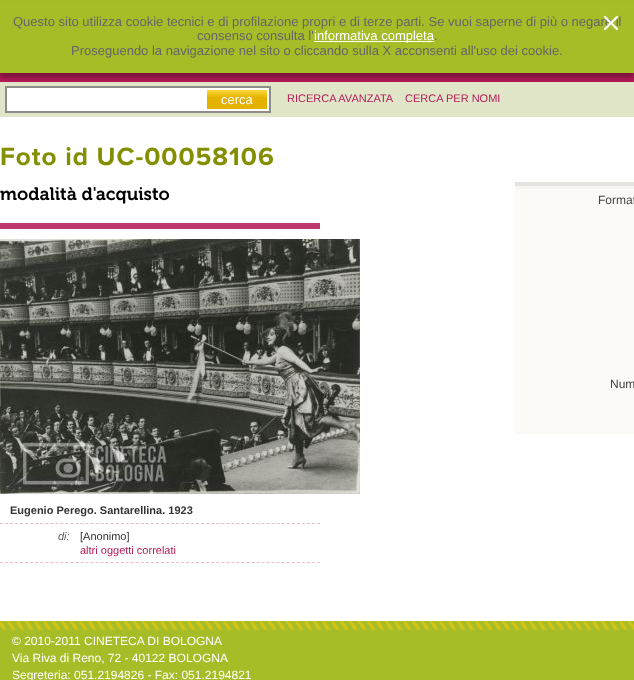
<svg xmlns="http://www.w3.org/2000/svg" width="634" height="680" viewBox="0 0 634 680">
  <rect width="100%" height="100%" fill="#a6bd28"/>
  <path d="M0 73h634v9H0z" fill="#b41b59"/>
  <path d="M0 82h634v35H0z" fill="#e1e6c9"/>
  <path d="M0 5h634v73H0z" fill="#0000004d" filter="blur(2px)"/>
  <path d="M0 2h634v71H0z" fill="#a6bd28"/>
  <path d="M314 41h120v1H314z" fill="#fff"/>
  <path d="M6 87h264v25H6z" fill="#fff" stroke="#8e8b88" stroke-width="2"/>
  <path d="M207 97h60v12H207z" fill="#e3b300"/>
  <image x="207" y="90" width="60" height="7" href="img/2.png"/>
  <path d="M0 117h634v504H0z" fill="#fff"/>
  <path d="M0 223h320v6H0z" fill="#bd376d"/>
  <image x="0" y="239" width="360" height="255" href="img/3.png"/>
  <path d="M0 523.5H320" fill="none" stroke="#e3bfce" stroke-dasharray="3 2.03"/>
  <path d="M0 562.5H320" fill="none" stroke="#e3bfce" stroke-dasharray="3 2.03"/>
  <path d="M515 189h119v245H515z" fill="#fcfaf7"/>
  <image x="515" y="182" width="119" height="7" href="img/4.png"/>
  <image x="0" y="621" width="634" height="9" href="img/5.png"/>
  <text x="13" y="26" font-family="Liberation Sans" font-size="13" fill="#666">Questo sito utilizza cookie tecnici e di profilazione propri e di terze parti. Se vuoi saperne di più o negare il</text>
  <image x="603" y="15" width="16" height="16" href="img/1.png"/>
  <text x="197" y="40" font-family="Liberation Sans" font-size="13" fill="#666">consenso consulta l'</text>
  <text x="314" y="40" font-family="Liberation Sans" font-size="13" fill="#fff">informativa completa</text>
  <g font-family="Liberation Sans" font-size="13" fill="#666">
    <text x="434" y="40">.</text>
    <text x="71" y="55">Proseguendo la navigazione nel sito o cliccando sulla X acconsenti all'uso dei cookie.</text>
  </g>
  <text x="221" y="104" font-family="Liberation Sans" font-size="13" fill="#fff">cerca</text>
  <g font-family="Liberation Sans" font-size="11" fill="#b41b59">
    <text x="287" y="102">RICERCA AVANZATA</text>
    <text x="405" y="102">CERCA PER NOMI</text>
  </g>
  <text x="0" y="165" font-family="Proxima Nova" font-size="26" font-weight="bold" letter-spacing="1" fill="#848f00">Foto id UC-00058106</text>
  <text x="0" y="200" font-family="'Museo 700'" font-size="18" font-weight="600" fill="#000">modalità d'acquisto</text>
  <text x="10" y="514" font-family="Liberation Sans" font-size="11" font-weight="bold" fill="#333">Eugenio Perego. Santarellina. 1923</text>
  <text x="58" y="540" font-family="Liberation Sans" font-size="11" font-style="italic" fill="#5c5c5c">di:</text>
  <text x="80" y="540" font-family="Liberation Sans" font-size="11" fill="#333">[Anonimo]</text>
  <text x="80" y="554" font-family="Liberation Sans" font-size="11" fill="#b41b59">altri oggetti correlati</text>
  <g font-family="Liberation Sans" font-size="12" fill="#444">
    <text x="598" y="204">Format</text>
    <text x="610" y="388">Num</text>
  </g>
  <g font-family="Liberation Sans" font-size="12" fill="#fff">
    <text x="12" y="645">© 2010-2011 CINETECA DI BOLOGNA</text>
    <text x="12" y="662">Via Riva di Reno, 72 - 40122 BOLOGNA</text>
    <text x="12" y="679">Segreteria: 051.2194826 - Fax: 051.2194821</text>
  </g>
</svg>
